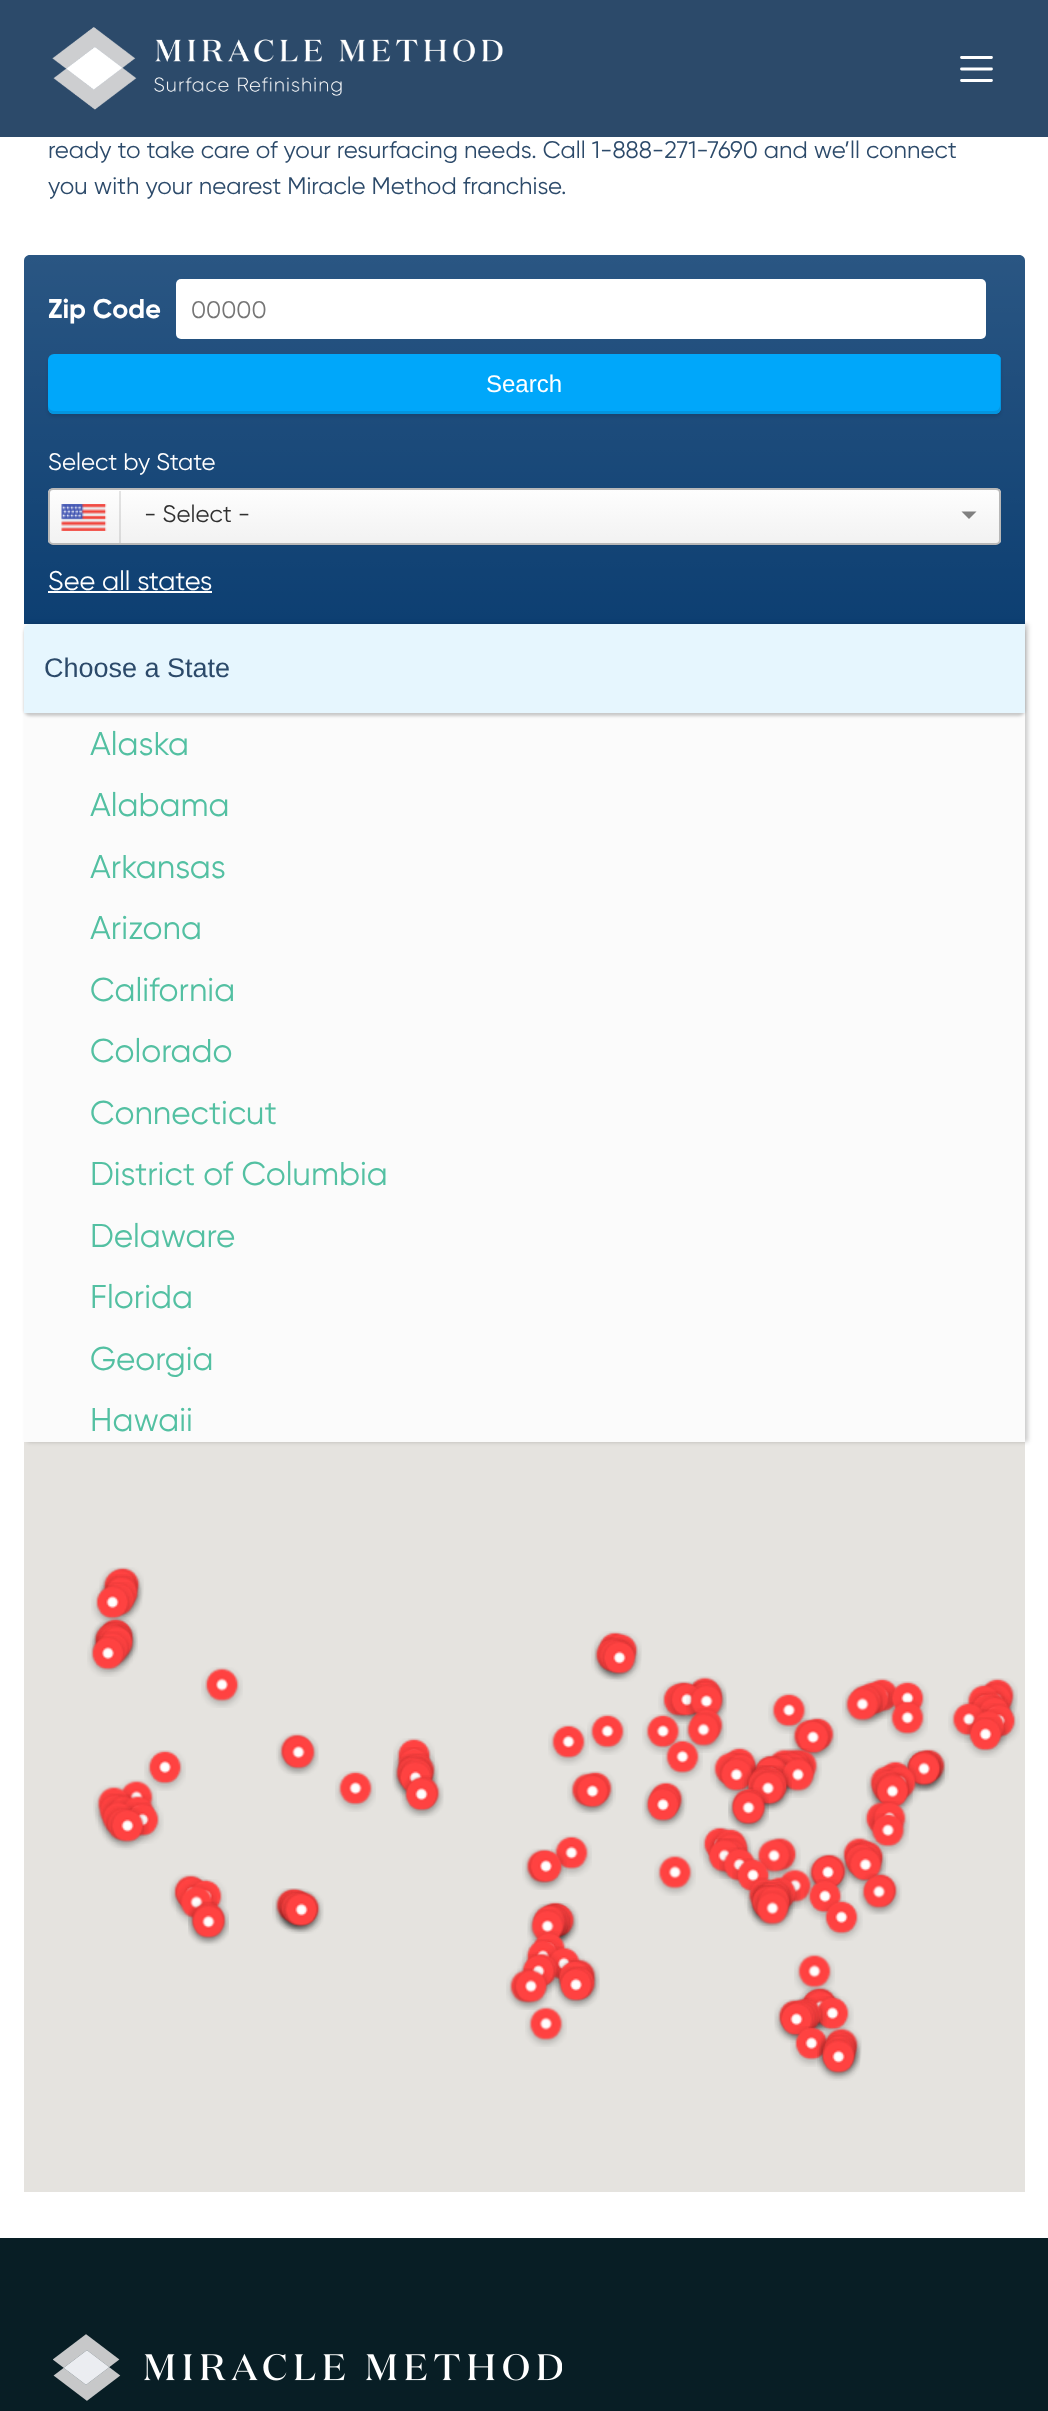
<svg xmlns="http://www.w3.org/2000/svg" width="1048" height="2411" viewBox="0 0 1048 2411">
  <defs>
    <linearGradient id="g1" gradientUnits="userSpaceOnUse" x1="524" y1="255" x2="524" y2="624"><stop offset="0" stop-color="#fff" stop-opacity="0.12"/><stop offset="1" stop-color="#fff" stop-opacity="0"/></linearGradient>
    <clipPath id="clip1"><rect x="48" y="488" width="953" height="57" rx="5"/></clipPath>
    <linearGradient id="g2" gradientUnits="userSpaceOnUse" x1="524" y1="489" x2="524" y2="543"><stop offset="0" stop-color="#fefefe"/><stop offset="1" stop-color="#f2f2f2"/></linearGradient>
    <clipPath id="clip2"><path d="M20 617H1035V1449H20ZM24 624H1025V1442H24Z" clip-rule="evenodd"/></clipPath>
  </defs>
  <rect width="100%" height="100%" fill="#fff"/>
  <path d="M0 0h1048v137H0z" fill="#2c4a6a"/>
  <image x="52" y="27" width="451" height="83" href="img/1.png"/>
  <path d="M991.5 57.5H961.5M961.5 80.5H991.5" fill="none" stroke="#fff" stroke-width="2.8" stroke-linecap="round" stroke-linejoin="round"/>
  <path d="M961.5 69H991.5" fill="none" stroke="#fff" stroke-width="2.8" stroke-linecap="round"/>
  <path d="M30 255H1019C1022.5 255 1025 257.5 1025 261V624H24V261C24 257.5 26.5 255 30 255Z" fill="#0d3f72"/>
  <path d="M30 255H1019C1022.5 255 1025 257.5 1025 261V624H24V261C24 257.5 26.5 255 30 255Z" fill="url(#g1)"/>
  <rect x="176" y="279" width="810" height="60" rx="5" fill="#fff"/>
  <rect x="48" y="357" width="953" height="60" rx="6" fill="#0000001a" filter="blur(1.5px)"/>
  <rect x="48" y="354" width="953" height="60" rx="6" fill="#00a7fa"/>
  <path d="M48 405V408C48 411 51 414 54 414H995C998 414 1001 411 1001 408V360C1001 359 1001 358 1000 357V405C1000 408 998 411 994 411H54C51 411 48 408 48 405Z" fill="#0495df"/>
  <path d="M48 540V541C48 544 50 546 53 546H996C999 546 1001 544 1001 541V494L1000 492V540C1000 542 998 544 996 544H52C50 544 48 542 48 540Z" fill="#0000000d"/>
  <g clip-path="url(#clip1)">
    <path d="M48 489h953v54H48z" fill="url(#g2)"/>
  </g>
  <rect x="49" y="489" width="951" height="55" rx="4" fill="none" stroke="#b8b8b8" stroke-width="2"/>
  <path d="M119 491h2v52H119z" fill="#0000001a"/>
  <image x="61" y="504" width="46" height="27" href="img/2.png"/>
  <path d="M961.5 511.5H976.5L969 519Z" fill="#808080"/>
  <path d="M48 591h164v2H48z" fill="#fff"/>
  <path d="M24 624h1001v818H24z" fill="#fbfbfb"/>
  <path d="M24 1442h1001v750H24z" fill="#e5e3df"/>
  <g clip-path="url(#clip2)">
    <path d="M27 624h1001v818H27z" fill="#00000033" filter="blur(2px)"/>
  </g>
  <rect x="24" y="627" width="1001" height="89" rx="6" fill="#00000033" filter="blur(1.5px)"/>
  <path d="M30 624H1025V713H24V630C24 626.5 26.5 624 30 624Z" fill="#e6f6fe"/>
  <image x="102" y="1567" width="42" height="40" href="img/3.png"/>
  <image x="99" y="1568" width="42" height="39" href="img/4.png"/>
  <image x="101" y="1574" width="41" height="41" href="img/5.png"/>
  <image x="100" y="1576" width="43" height="41" href="img/6.png"/>
  <image x="97" y="1582" width="43" height="41" href="img/7.png"/>
  <image x="91" y="1585" width="43" height="40" href="img/8.png"/>
  <image x="94" y="1618" width="43" height="40" href="img/9.png"/>
  <image x="96" y="1619" width="42" height="41" href="img/10.png"/>
  <image x="95" y="1621" width="41" height="41" href="img/11.png"/>
  <image x="90" y="1622" width="42" height="40" href="img/12.png"/>
  <image x="92" y="1622" width="41" height="41" href="img/13.png"/>
  <image x="93" y="1624" width="42" height="41" href="img/14.png"/>
  <image x="96" y="1625" width="42" height="41" href="img/15.png"/>
  <image x="92" y="1631" width="41" height="41" href="img/16.png"/>
  <image x="594" y="1631" width="42" height="42" href="img/17.png"/>
  <image x="87" y="1636" width="42" height="41" href="img/18.png"/>
  <image x="600" y="1633" width="42" height="41" href="img/19.png"/>
  <image x="595" y="1637" width="43" height="42" href="img/21.png"/>
  <image x="591" y="1637" width="42" height="42" href="img/20.png"/>
  <image x="594" y="1639" width="42" height="41" href="img/22.png"/>
  <image x="598" y="1640" width="43" height="42" href="img/23.png"/>
  <image x="201" y="1667" width="42" height="41" href="img/24.png"/>
  <image x="688" y="1676" width="38" height="40" href="img/25.png"/>
  <image x="864" y="1678" width="36" height="41" href="img/26.png"/>
  <image x="979" y="1678" width="39" height="36" href="img/27.png"/>
  <image x="690" y="1679" width="37" height="38" href="img/29.png"/>
  <image x="663" y="1681" width="38" height="41" href="img/28.png"/>
  <image x="688" y="1681" width="38" height="38" href="img/31.png"/>
  <image x="658" y="1682" width="40" height="42" href="img/30.png"/>
  <image x="853" y="1681" width="41" height="41" href="img/32.png"/>
  <image x="886" y="1681" width="43" height="36" href="img/33.png"/>
  <image x="666" y="1682" width="36" height="42" href="img/34.png"/>
  <image x="686" y="1684" width="41" height="36" href="img/35.png"/>
  <image x="845" y="1684" width="41" height="41" href="img/36.png"/>
  <image x="981" y="1682" width="36" height="33" href="img/37.png"/>
  <image x="842" y="1686" width="41" height="42" href="img/38.png"/>
  <image x="963" y="1684" width="42" height="23" href="img/39.png"/>
  <image x="768" y="1693" width="42" height="41" href="img/40.png"/>
  <image x="971" y="1691" width="41" height="24" href="img/41.png"/>
  <image x="967" y="1693" width="41" height="23" href="img/42.png"/>
  <image x="887" y="1700" width="41" height="42" href="img/43.png"/>
  <image x="975" y="1696" width="40" height="41" href="img/45.png"/>
  <image x="948" y="1702" width="40" height="41" href="img/44.png"/>
  <image x="686" y="1708" width="41" height="41" href="img/46.png"/>
  <image x="979" y="1703" width="41" height="42" href="img/47.png"/>
  <image x="587" y="1714" width="41" height="41" href="img/48.png"/>
  <image x="683" y="1712" width="41" height="41" href="img/50.png"/>
  <image x="642" y="1714" width="42" height="41" href="img/49.png"/>
  <image x="797" y="1717" width="41" height="41" href="img/51.png"/>
  <image x="967" y="1709" width="43" height="41" href="img/52.png"/>
  <image x="789" y="1718" width="42" height="41" href="img/53.png"/>
  <image x="964" y="1717" width="43" height="41" href="img/54.png"/>
  <image x="276" y="1733" width="42" height="41" href="img/55.png"/>
  <image x="548" y="1724" width="41" height="42" href="img/56.png"/>
  <image x="792" y="1720" width="42" height="41" href="img/57.png"/>
  <image x="278" y="1735" width="41" height="41" href="img/58.png"/>
  <image x="393" y="1738" width="42" height="35" href="img/59.png"/>
  <image x="662" y="1739" width="41" height="42" href="img/60.png"/>
  <image x="393" y="1747" width="42" height="38" href="img/61.png"/>
  <image x="719" y="1747" width="41" height="41" href="img/62.png"/>
  <image x="786" y="1748" width="36" height="41" href="img/66.png"/>
  <image x="780" y="1748" width="34" height="41" href="img/64.png"/>
  <image x="766" y="1748" width="39" height="41" href="img/63.png"/>
  <image x="144" y="1750" width="42" height="41" href="img/65.png"/>
  <image x="908" y="1748" width="41" height="42" href="img/67.png"/>
  <image x="903" y="1750" width="42" height="41" href="img/68.png"/>
  <image x="710" y="1751" width="40" height="42" href="img/69.png"/>
  <image x="775" y="1751" width="38" height="42" href="img/70.png"/>
  <image x="903" y="1750" width="42" height="41" href="img/71.png"/>
  <image x="903" y="1751" width="42" height="42" href="img/72.png"/>
  <image x="398" y="1753" width="41" height="39" href="img/73.png"/>
  <image x="720" y="1753" width="40" height="41" href="img/74.png"/>
  <image x="768" y="1753" width="33" height="41" href="img/75.png"/>
  <image x="904" y="1751" width="41" height="41" href="img/76.png"/>
  <image x="393" y="1754" width="42" height="40" href="img/77.png"/>
  <image x="750" y="1754" width="40" height="37" href="img/78.png"/>
  <image x="392" y="1756" width="41" height="41" href="img/79.png"/>
  <image x="751" y="1756" width="40" height="39" href="img/83.png"/>
  <image x="750" y="1756" width="40" height="38" href="img/80.png"/>
  <image x="396" y="1757" width="42" height="40" href="img/81.png"/>
  <image x="716" y="1757" width="41" height="42" href="img/82.png"/>
  <image x="778" y="1757" width="41" height="41" href="img/84.png"/>
  <image x="394" y="1760" width="43" height="41" href="img/85.png"/>
  <image x="875" y="1760" width="41" height="40" href="img/86.png"/>
  <image x="744" y="1765" width="42" height="41" href="img/87.png"/>
  <image x="866" y="1765" width="33" height="41" href="img/90.png"/>
  <image x="882" y="1764" width="39" height="42" href="img/88.png"/>
  <image x="747" y="1765" width="42" height="41" href="img/89.png"/>
  <image x="750" y="1766" width="42" height="42" href="img/91.png"/>
  <image x="742" y="1767" width="42" height="42" href="img/92.png"/>
  <image x="335" y="1771" width="41" height="41" href="img/48.png"/>
  <image x="575" y="1771" width="41" height="41" href="img/48.png"/>
  <image x="750" y="1769" width="42" height="41" href="img/93.png"/>
  <image x="867" y="1769" width="42" height="39" href="img/94.png"/>
  <image x="567" y="1772" width="42" height="41" href="img/95.png"/>
  <image x="747" y="1771" width="42" height="41" href="img/96.png"/>
  <image x="872" y="1772" width="41" height="40" href="img/97.png"/>
  <image x="402" y="1775" width="42" height="41" href="img/98.png"/>
  <image x="572" y="1774" width="41" height="41" href="img/99.png"/>
  <image x="871" y="1773" width="42" height="40" href="img/100.png"/>
  <image x="118" y="1779" width="39" height="32" href="img/101.png"/>
  <image x="400" y="1777" width="43" height="41" href="img/102.png"/>
  <image x="645" y="1781" width="42" height="42" href="img/103.png"/>
  <image x="93" y="1785" width="41" height="41" href="img/104.png"/>
  <image x="644" y="1784" width="41" height="41" href="img/105.png"/>
  <image x="642" y="1787" width="42" height="42" href="img/106.png"/>
  <image x="728" y="1787" width="41" height="42" href="img/107.png"/>
  <image x="728" y="1790" width="41" height="41" href="img/108.png"/>
  <image x="95" y="1793" width="37" height="42" href="img/109.png"/>
  <image x="728" y="1790" width="41" height="42" href="img/110.png"/>
  <image x="103" y="1794" width="34" height="38" href="img/111.png"/>
  <image x="120" y="1794" width="39" height="42" href="img/113.png"/>
  <image x="98" y="1800" width="36" height="42" href="img/112.png"/>
  <image x="861" y="1800" width="42" height="42" href="img/114.png"/>
  <image x="125" y="1802" width="39" height="42" href="img/116.png"/>
  <image x="102" y="1806" width="42" height="42" href="img/115.png"/>
  <image x="869" y="1801" width="41" height="40" href="img/117.png"/>
  <image x="106" y="1808" width="43" height="42" href="img/118.png"/>
  <image x="699" y="1826" width="38" height="41" href="img/119.png"/>
  <image x="867" y="1813" width="42" height="41" href="img/120.png"/>
  <image x="710" y="1828" width="41" height="28" href="img/121.png"/>
  <image x="551" y="1835" width="41" height="42" href="img/67.png"/>
  <image x="711" y="1832" width="42" height="41" href="img/122.png"/>
  <image x="759" y="1836" width="42" height="42" href="img/123.png"/>
  <image x="838" y="1836" width="42" height="42" href="img/124.png"/>
  <image x="710" y="1838" width="41" height="41" href="img/126.png"/>
  <image x="703" y="1838" width="41" height="41" href="img/125.png"/>
  <image x="753" y="1838" width="42" height="41" href="img/127.png"/>
  <image x="846" y="1840" width="42" height="41" href="img/128.png"/>
  <image x="845" y="1841" width="41" height="42" href="img/129.png"/>
  <image x="719" y="1847" width="41" height="42" href="img/130.png"/>
  <image x="840" y="1843" width="42" height="41" href="img/131.png"/>
  <image x="522" y="1848" width="42" height="42" href="img/132.png"/>
  <image x="845" y="1847" width="41" height="42" href="img/133.png"/>
  <image x="525" y="1849" width="42" height="41" href="img/134.png"/>
  <image x="654" y="1854" width="42" height="42" href="img/135.png"/>
  <image x="809" y="1853" width="41" height="40" href="img/136.png"/>
  <image x="806" y="1854" width="41" height="38" href="img/137.png"/>
  <image x="169" y="1874" width="39" height="41" href="img/138.png"/>
  <image x="732" y="1858" width="42" height="41" href="img/139.png"/>
  <image x="807" y="1855" width="42" height="38" href="img/141.png"/>
  <image x="776" y="1868" width="40" height="41" href="img/140.png"/>
  <image x="859" y="1873" width="43" height="41" href="img/142.png"/>
  <image x="171" y="1876" width="37" height="41" href="img/143.png"/>
  <image x="766" y="1875" width="35" height="42" href="img/145.png"/>
  <image x="744" y="1877" width="38" height="42" href="img/144.png"/>
  <image x="858" y="1874" width="42" height="41" href="img/146.png"/>
  <image x="185" y="1879" width="42" height="38" href="img/147.png"/>
  <image x="753" y="1879" width="42" height="40" href="img/148.png"/>
  <image x="804" y="1879" width="42" height="41" href="img/149.png"/>
  <image x="748" y="1882" width="43" height="41" href="img/150.png"/>
  <image x="176" y="1884" width="41" height="42" href="img/151.png"/>
  <image x="752" y="1882" width="41" height="41" href="img/152.png"/>
  <image x="747" y="1885" width="42" height="41" href="img/154.png"/>
  <image x="747" y="1885" width="42" height="41" href="img/156.png"/>
  <image x="753" y="1884" width="42" height="42" href="img/153.png"/>
  <image x="272" y="1888" width="38" height="41" href="img/155.png"/>
  <image x="275" y="1888" width="41" height="41" href="img/157.png"/>
  <image x="276" y="1889" width="42" height="41" href="img/158.png"/>
  <image x="752" y="1890" width="41" height="42" href="img/159.png"/>
  <image x="282" y="1891" width="42" height="41" href="img/161.png"/>
  <image x="276" y="1891" width="42" height="41" href="img/160.png"/>
  <image x="279" y="1892" width="42" height="42" href="img/162.png"/>
  <image x="188" y="1901" width="41" height="42" href="img/163.png"/>
  <image x="280" y="1892" width="43" height="42" href="img/164.png"/>
  <image x="534" y="1901" width="42" height="41" href="img/165.png"/>
  <image x="820" y="1900" width="43" height="41" href="img/166.png"/>
  <image x="188" y="1902" width="41" height="42" href="img/167.png"/>
  <image x="537" y="1903" width="41" height="40" href="img/168.png"/>
  <image x="188" y="1904" width="41" height="42" href="img/169.png"/>
  <image x="541" y="1903" width="38" height="41" href="img/170.png"/>
  <image x="532" y="1904" width="43" height="40" href="img/173.png"/>
  <image x="530" y="1904" width="41" height="39" href="img/172.png"/>
  <image x="528" y="1904" width="42" height="38" href="img/171.png"/>
  <image x="527" y="1909" width="41" height="36" href="img/174.png"/>
  <image x="528" y="1931" width="42" height="29" href="img/175.png"/>
  <image x="522" y="1939" width="40" height="39" href="img/176.png"/>
  <image x="545" y="1946" width="40" height="42" href="img/177.png"/>
  <image x="521" y="1952" width="41" height="41" href="img/178.png"/>
  <image x="794" y="1953" width="41" height="41" href="img/179.png"/>
  <image x="517" y="1954" width="43" height="41" href="img/180.png"/>
  <image x="558" y="1958" width="42" height="41" href="img/181.png"/>
  <image x="556" y="1960" width="43" height="41" href="img/183.png"/>
  <image x="553" y="1960" width="43" height="41" href="img/182.png"/>
  <image x="558" y="1966" width="42" height="41" href="img/184.png"/>
  <image x="506" y="1968" width="41" height="42" href="img/185.png"/>
  <image x="555" y="1967" width="42" height="42" href="img/186.png"/>
  <image x="510" y="1968" width="42" height="42" href="img/187.png"/>
  <image x="800" y="1987" width="41" height="41" href="img/188.png"/>
  <image x="797" y="1988" width="40" height="42" href="img/189.png"/>
  <image x="799" y="1988" width="40" height="42" href="img/190.png"/>
  <image x="801" y="1989" width="39" height="42" href="img/191.png"/>
  <image x="814" y="1996" width="40" height="41" href="img/193.png"/>
  <image x="789" y="1997" width="38" height="41" href="img/192.png"/>
  <image x="774" y="1999" width="42" height="41" href="img/195.png"/>
  <image x="782" y="1998" width="41" height="42" href="img/194.png"/>
  <image x="779" y="2000" width="41" height="41" href="img/196.png"/>
  <image x="525" y="2006" width="42" height="41" href="img/197.png"/>
  <image x="775" y="2002" width="43" height="41" href="img/198.png"/>
  <image x="790" y="2026" width="41" height="41" href="img/199.png"/>
  <image x="821" y="2027" width="41" height="41" href="img/200.png"/>
  <image x="819" y="2030" width="42" height="42" href="img/201.png"/>
  <image x="819" y="2033" width="42" height="42" href="img/202.png"/>
  <image x="817" y="2035" width="43" height="41" href="img/203.png"/>
  <image x="817" y="2038" width="43" height="41" href="img/204.png"/>
  <image x="817" y="2039" width="43" height="42" href="img/205.png"/>
  <path d="M0 2238h1048v173H0z" fill="#081e25"/>
  <image x="53" y="2334" width="509" height="67" href="img/206.png"/>
  <g font-family="Gilroy" font-size="24" fill="#2c4a6a">
    <text x="48" y="158">ready to take care of your resurfacing needs. Call 1-888-271-7690 and we’ll connect</text>
    <text x="48" y="194">you with your nearest Miracle Method franchise.</text>
  </g>
  <text x="48" y="318" font-family="Gilroy" font-size="27" font-weight="bold" fill="#fff">Zip Code</text>
  <text x="191" y="318" font-family="Gilroy" font-size="24" fill="#757575">00000</text>
  <text x="486" y="392" font-family="Liberation Sans" font-size="24" fill="#fff">Search</text>
  <text x="48" y="470" font-family="Gilroy" font-size="24" fill="#fff">Select by State</text>
  <text x="144" y="522" font-family="Gilroy" font-size="24" fill="#303030">- Select -</text>
  <text x="48" y="590" font-family="Gilroy" font-size="27" fill="#fff">See all states</text>
  <text x="44" y="677" font-family="Liberation Sans" font-size="27" fill="#2c4a6a">Choose a State</text>
  <g font-family="Gilroy" font-size="33" fill="#53c0a2">
    <text x="90" y="755">Alaska</text>
    <text x="90" y="816">Alabama</text>
    <text x="90" y="878">Arkansas</text>
    <text x="90" y="939">Arizona</text>
    <text x="90" y="1001">California</text>
    <text x="90" y="1062">Colorado</text>
    <text x="90" y="1124">Connecticut</text>
    <text x="90" y="1185">District of Columbia</text>
    <text x="90" y="1247">Delaware</text>
    <text x="90" y="1308">Florida</text>
    <text x="90" y="1370">Georgia</text>
    <text x="90" y="1431">Hawaii</text>
  </g>
</svg>
